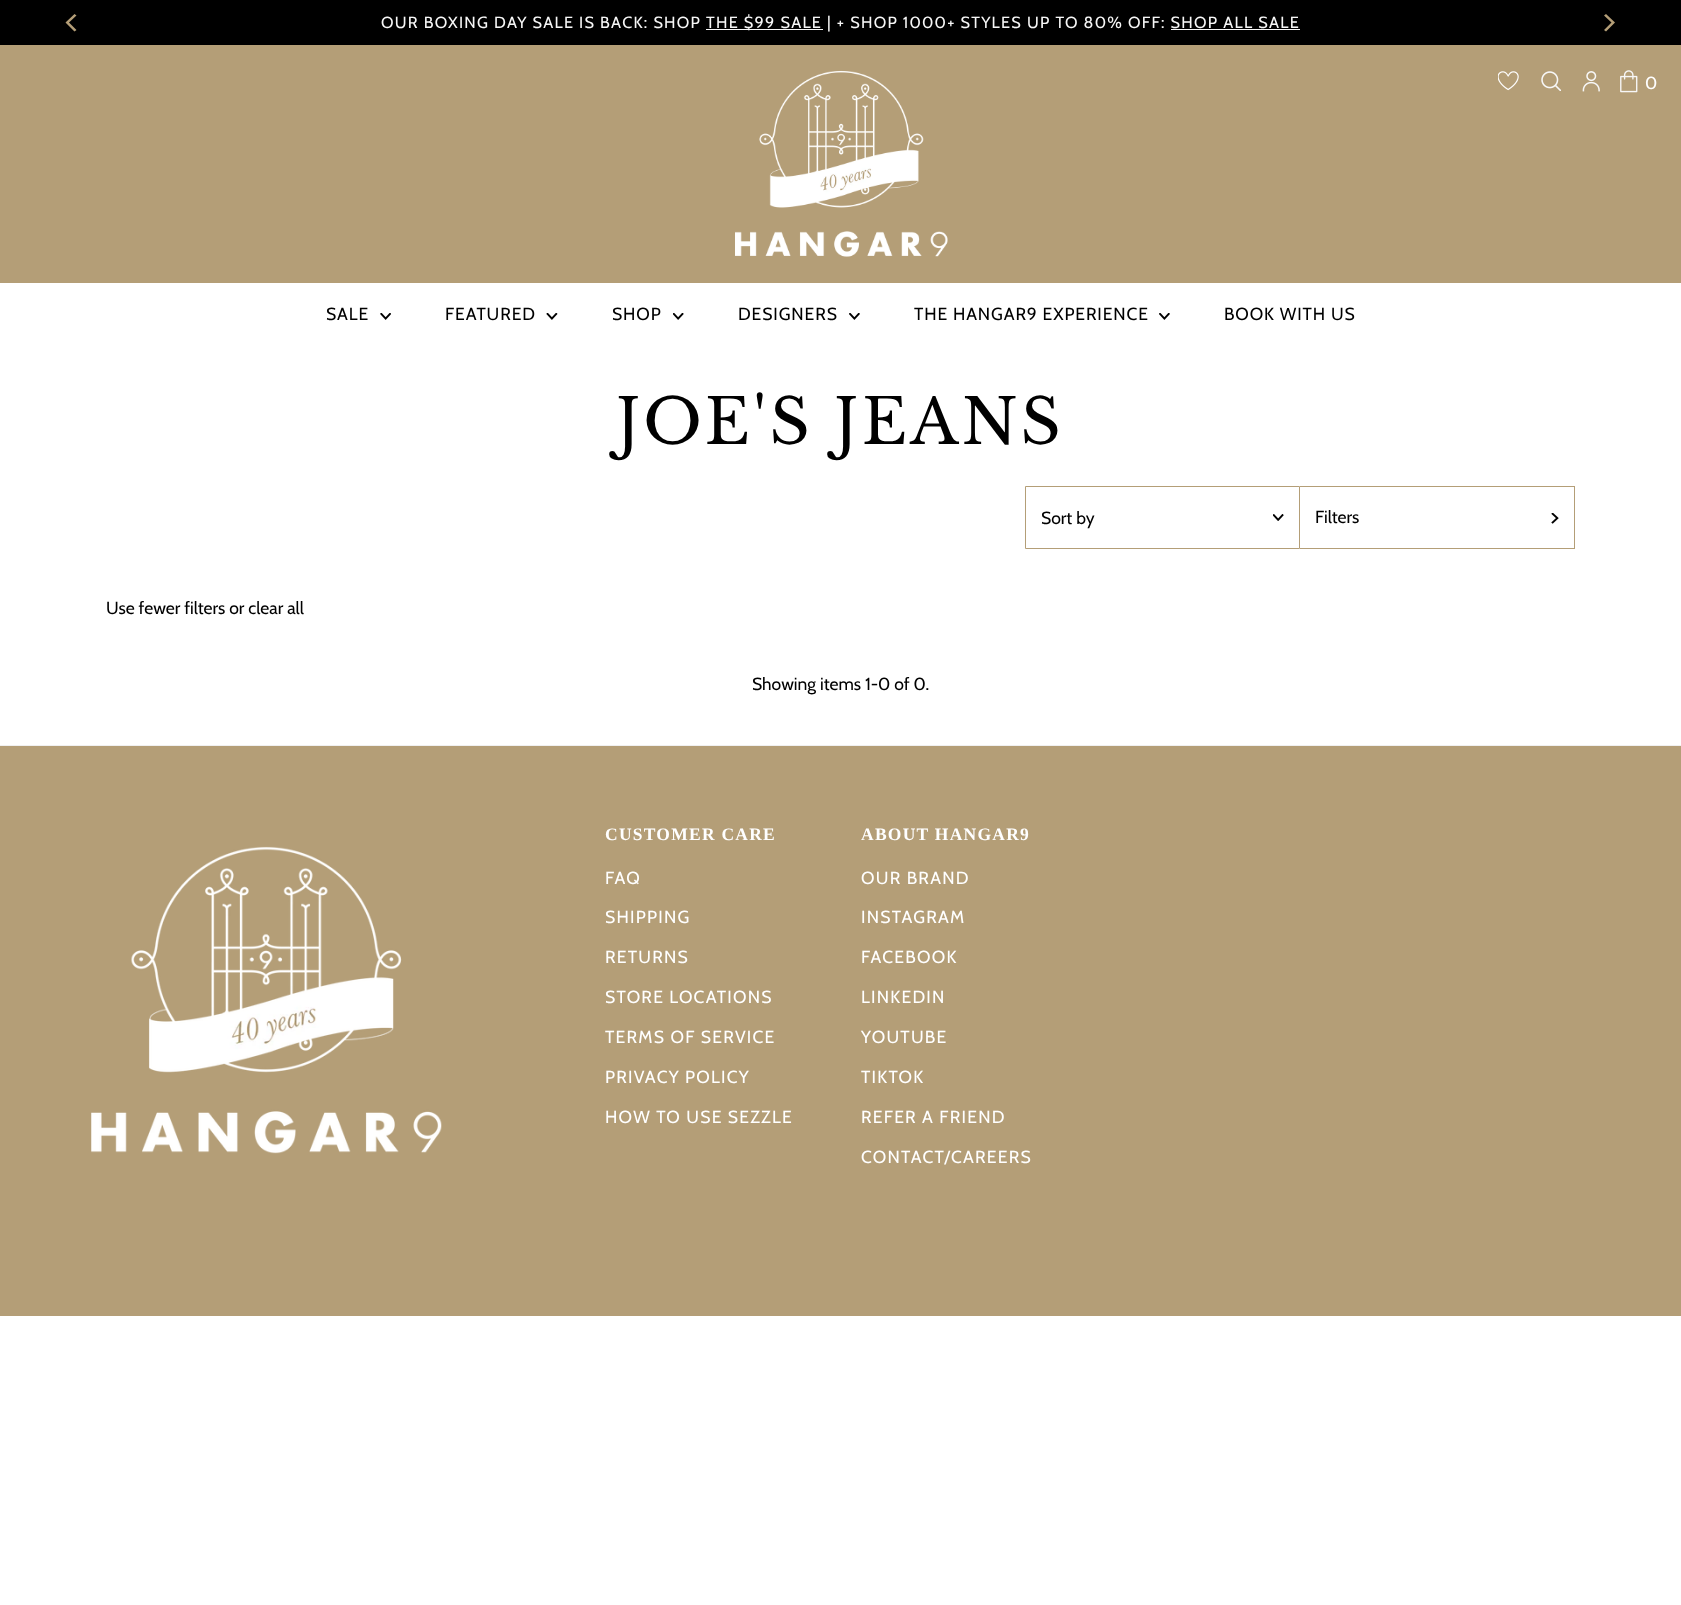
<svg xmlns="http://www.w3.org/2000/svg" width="1681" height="1605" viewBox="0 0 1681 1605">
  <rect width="100%" height="100%" fill="#fff"/>
  <path d="M0 0h1681v45H0z" fill="#000"/>
  <path d="M65.5 22.5L74.5 31.5L76.5 30L69 22.5L76.5 15.5L74.5 14Z" fill="#b49e77"/>
  <path d="M706 29h117v1H706z" fill="#f7f7f7"/>
  <path d="M1171 29h129v1H1171z" fill="#f7f7f7"/>
  <path d="M1615 22.5L1606 14L1604 15.5L1611.5 22.5L1604 30L1606 31.5Z" fill="#b49e77"/>
  <path d="M0 45h1681v238H0z" fill="#b49e77"/>
  <image x="735" y="70" width="213" height="187" href="img/1.png"/>
  <image x="1498" y="71" width="21" height="20" href="img/2.png"/>
  <image x="1541" y="71" width="20" height="20" href="img/3.png"/>
  <image x="1582" y="71" width="18" height="21" href="img/4.png"/>
  <image x="1620" y="70" width="18" height="23" href="img/5.png"/>
  <image x="380" y="313" width="11" height="7" href="img/6.png"/>
  <image x="546" y="313" width="12" height="7" href="img/7.png"/>
  <image x="673" y="313" width="11" height="7" href="img/8.png"/>
  <image x="849" y="313" width="11" height="7" href="img/9.png"/>
  <image x="1159" y="313" width="11" height="7" href="img/9.png"/>
  <path d="M1025.5 486.5h274v62H1025.5z" fill="none" stroke="#b49e77"/>
  <image x="1273" y="514" width="11" height="7" href="img/10.png"/>
  <path d="M1300 486h275v1H1300z" fill="#b49e77"/>
  <path d="M1574 486h1v63H1574z" fill="#b49e77"/>
  <path d="M1300 548h275v1H1300z" fill="#b49e77"/>
  <image x="1551" y="513" width="8" height="11" href="img/11.png"/>
  <path d="M0 746h1681v570H0z" fill="#b49e77"/>
  <path d="M0 745h1681v1H0z" fill="#f0f0f0"/>
  <image x="91" y="846" width="351" height="308" href="img/12.png"/>
  <g font-family="Cabin" font-size="16.25" letter-spacing="1.25" fill="#f7f7f7">
    <text x="381" y="28">OUR BOXING DAY SALE IS BACK: SHOP</text>
    <text x="706" y="28">THE $99 SALE | + SHOP 1000+ STYLES UP TO 80% OFF: SHOP ALL SALE</text>
  </g>
  <text x="1645" y="89" font-family="Cabin" font-size="17.5" fill="#fff">0</text>
  <g font-family="Cabin" font-size="17.5" letter-spacing="0.9" fill="#000">
    <text x="326" y="320">SALE</text>
    <text x="445" y="320">FEATURED</text>
    <text x="612" y="320">SHOP</text>
    <text x="738" y="320">DESIGNERS</text>
    <text x="914" y="320">THE HANGAR9 EXPERIENCE</text>
    <text x="1224" y="320">BOOK WITH US</text>
  </g>
  <text x="616" y="444" font-family="Libre Baskerville" font-size="62.5" letter-spacing="3.1" fill="#000">JOE'S JEANS</text>
  <g font-family="Cabin" font-size="17.5" fill="#000">
    <text x="1041" y="524">Sort by</text>
    <text x="1315" y="523">Filters</text>
    <text x="106" y="614">Use fewer filters or clear all</text>
    <text x="752" y="690">Showing items 1-0 of 0.</text>
  </g>
  <text x="605" y="840" font-family="Liberation Serif" font-size="17.5" font-weight="bold" letter-spacing="1.25" fill="#fff">CUSTOMER CARE</text>
  <g font-family="Cabin" font-size="17.5" letter-spacing="1.25" fill="#fff">
    <text x="605" y="884">FAQ</text>
    <text x="605" y="923">SHIPPING</text>
    <text x="605" y="963">RETURNS</text>
    <text x="605" y="1003">STORE LOCATIONS</text>
    <text x="605" y="1043">TERMS OF SERVICE</text>
    <text x="605" y="1083">PRIVACY POLICY</text>
    <text x="605" y="1123">HOW TO USE SEZZLE</text>
  </g>
  <text x="861" y="840" font-family="Liberation Serif" font-size="17.5" font-weight="bold" letter-spacing="1.25" fill="#fff">ABOUT HANGAR9</text>
  <g font-family="Cabin" font-size="17.5" letter-spacing="1.25" fill="#fff">
    <text x="861" y="884">OUR BRAND</text>
    <text x="861" y="923">INSTAGRAM</text>
    <text x="861" y="963">FACEBOOK</text>
    <text x="861" y="1003">LINKEDIN</text>
    <text x="861" y="1043">YOUTUBE</text>
    <text x="861" y="1083">TIKTOK</text>
    <text x="861" y="1123">REFER A FRIEND</text>
    <text x="861" y="1163">CONTACT/CAREERS</text>
  </g>
</svg>
